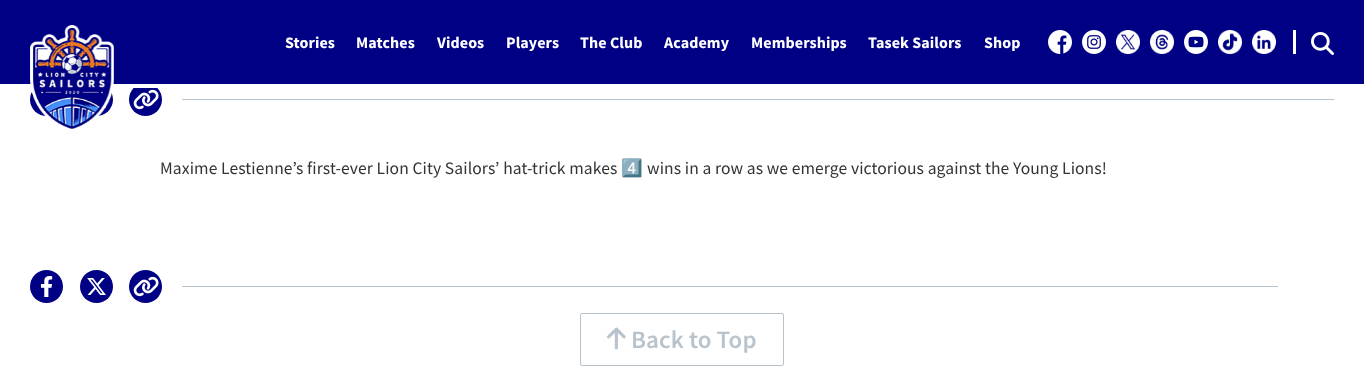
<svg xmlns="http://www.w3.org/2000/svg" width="1364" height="392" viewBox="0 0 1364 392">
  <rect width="100%" height="100%" fill="#fff"/>
  <circle cx="46.5" cy="99.5" r="16.5" fill="#000084"/>
  <circle cx="96.5" cy="99.5" r="16.5" fill="#000084"/>
  <circle cx="145.5" cy="99.5" r="16.5" fill="#000084"/>
  <path d="M0 0h1364v84H0z" fill="#000084"/>
  <path d="M34 84h124v4H34z" fill="#fff"/>
  <image x="104" y="106" width="2" height="2" href="img/10.png"/>
  <image x="30" y="25" width="84" height="105" href="img/1.png"/>
  <path d="M1293 30h3v24H1293z" fill="#fff"/>
  <image x="1048" y="30" width="24" height="24" href="img/2.png"/>
  <image x="1082" y="30" width="24" height="24" href="img/3.png"/>
  <image x="1116" y="30" width="24" height="24" href="img/4.png"/>
  <image x="1150" y="30" width="24" height="24" href="img/5.png"/>
  <image x="1184" y="30" width="24" height="24" href="img/6.png"/>
  <image x="1218" y="30" width="24" height="24" href="img/7.png"/>
  <image x="1252" y="30" width="24" height="24" href="img/8.png"/>
  <image x="1311" y="32" width="23" height="23" href="img/9.png"/>
  <image x="133" y="89" width="26" height="21" href="img/11.png"/>
  <path d="M182 99h1152v1H182z" fill="#b8c3cc"/>
  <circle cx="46.5" cy="286.5" r="16.5" fill="#000084"/>
  <image x="40" y="276" width="13" height="21" href="img/12.png"/>
  <circle cx="96.5" cy="286.5" r="16.5" fill="#000084"/>
  <image x="87" y="278" width="19" height="17" href="img/13.png"/>
  <circle cx="145.5" cy="286.5" r="16.5" fill="#000084"/>
  <image x="133" y="276" width="26" height="21" href="img/11.png"/>
  <path d="M182 286h1096v1H182z" fill="#b8c3cc"/>
  <rect x="580.5" y="313.5" width="203" height="52" rx="1.5" fill="none" stroke="#b8c3cc"/>
  <image x="607" y="327" width="19" height="23" href="img/14.png"/>
  <g font-family="Source Sans Pro" font-size="16" font-weight="bold" letter-spacing="0.1" fill="#fff">
    <text x="285" y="48">Stories</text>
    <text x="356" y="48">Matches</text>
    <text x="437" y="48">Videos</text>
    <text x="506" y="48">Players</text>
    <text x="580" y="48">The Club</text>
    <text x="664" y="48">Academy</text>
    <text x="751" y="48">Memberships</text>
    <text x="868" y="48">Tasek Sailors</text>
    <text x="984" y="48">Shop</text>
  </g>
  <text x="160" y="174" font-family="Source Sans Pro" font-size="17.5" letter-spacing="0.1" fill="#333">Maxime Lestienne’s first-ever Lion City Sailors’ hat-trick makes</text>
  <text x="621" y="174" font-family="Noto Color Emoji" font-size="17.5" letter-spacing="0.1" fill="#333">4️⃣</text>
  <text x="647" y="174" font-family="Source Sans Pro" font-size="17.5" letter-spacing="0.1" fill="#333">wins in a row as we emerge victorious against the Young Lions!</text>
  <text x="631" y="348" font-family="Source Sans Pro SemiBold" font-size="25" font-weight="600" letter-spacing="0.1" fill="#b8c3cc">Back to Top</text>
</svg>
